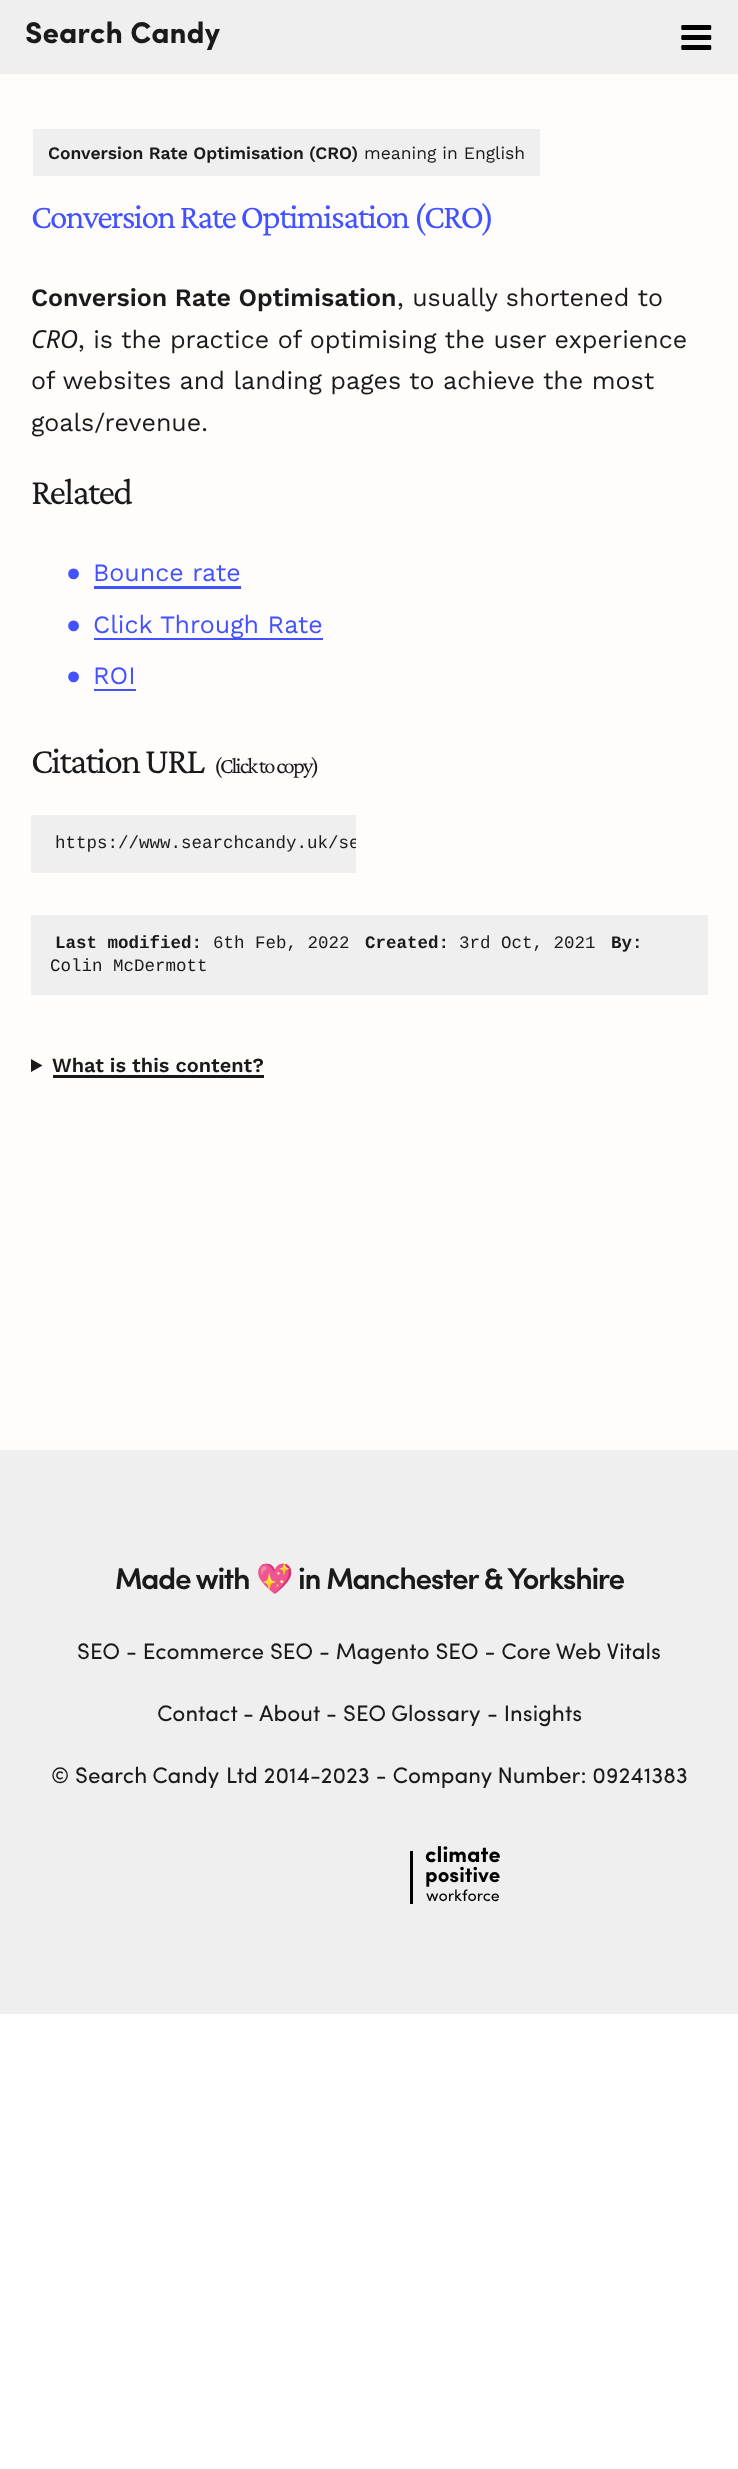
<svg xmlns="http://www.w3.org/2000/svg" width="738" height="2469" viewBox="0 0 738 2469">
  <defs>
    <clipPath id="clip1"><path d="M38 815h318v58H38z"/></clipPath>
  </defs>
  <rect width="100%" height="100%" fill="#fff"/>
  <path d="M0 0h738v74H0z" fill="#efefef"/>
  <image x="681" y="25" width="31" height="25" href="img/1.png"/>
  <path d="M0 74h738v1376H0z" fill="#fffcfc"/>
  <path d="M33 129h507v47H33z" fill="#efefef"/>
  <path d="M94 586h147v3H94z" fill="#4252ff"/>
  <path d="M94 638h229v2H94z" fill="#4252ff"/>
  <path d="M94 689h42v2H94z" fill="#4252ff"/>
  <path d="M31 815h325v58H31z" fill="#efefef"/>
  <path d="M31 915h677v80H31z" fill="#efefef"/>
  <path d="M31 1059L42.5 1065.5L31 1072Z" fill="#1a1a1a"/>
  <path d="M53 1075h211v3H53z" fill="#1a1a1a"/>
  <path d="M0 1450h738v564H0z" fill="#efefef"/>
  <path d="M410 1851h3v53H410z" fill="#000"/>
  <text x="25" y="43" font-family="Sofia" font-size="30" font-weight="bold" fill="#1a1a1a">Search Candy</text>
  <text x="48" y="159" font-family="Work Sans" font-size="17.5" font-weight="600" fill="#1a1a1a">Conversion Rate Optimisation (CRO)</text>
  <text x="364" y="159" font-family="Work Sans" font-size="17.5" fill="#1a1a1a">meaning in English</text>
  <text x="31" y="228" font-family="Crimson Pro" font-size="35" letter-spacing="-1.55" fill="#4252ff">Conversion Rate Optimisation (CRO)</text>
  <text x="31" y="306" font-family="Work Sans" font-size="25" font-weight="600" fill="#1a1a1a">Conversion Rate Optimisation</text>
  <text x="397" y="306" font-family="Work Sans" font-size="25" fill="#1a1a1a">, usually shortened to</text>
  <text x="31" y="348" font-family="Noto Sans" font-size="25" font-style="italic" fill="#1a1a1a">CRO</text>
  <g font-family="Work Sans" font-size="25" fill="#1a1a1a">
    <text x="78" y="348">, is the practice of optimising the user experience</text>
    <text x="31" y="389">of websites and landing pages to achieve the most</text>
    <text x="31" y="431">goals/revenue.</text>
  </g>
  <text x="31" y="504" font-family="Crimson Pro" font-size="37.5" letter-spacing="-1.75" fill="#1a1a1a">Related</text>
  <text x="66" y="581" font-family="Liberation Sans" font-size="25" fill="#4252ff">●</text>
  <text x="93" y="581" font-family="Work Sans" font-size="25" fill="#4252ff">Bounce rate</text>
  <text x="66" y="633" font-family="Liberation Sans" font-size="25" fill="#4252ff">●</text>
  <text x="93" y="633" font-family="Work Sans" font-size="25" fill="#4252ff">Click Through Rate</text>
  <text x="66" y="684" font-family="Liberation Sans" font-size="25" fill="#4252ff">●</text>
  <text x="93" y="684" font-family="Work Sans" font-size="25" fill="#4252ff">ROI</text>
  <text x="31" y="773" font-family="Crimson Pro" font-size="37.5" letter-spacing="-1.75" fill="#1a1a1a">Citation URL</text>
  <text x="214" y="773" font-family="Crimson Pro" font-size="22.5" letter-spacing="-1.75" fill="#1a1a1a">(Click to copy)</text>
  <g clip-path="url(#clip1)">
    <text x="55" y="848" font-family="Liberation Mono" font-size="17.5" fill="#1a1a1a">https://www.searchcandy.uk/se</text>
  </g>
  <text x="55" y="948" font-family="Liberation Mono" font-size="17.5" font-weight="bold" fill="#1a1a1a">Last modified:</text>
  <text x="213" y="948" font-family="Liberation Mono" font-size="17.5" fill="#1a1a1a">6th Feb, 2022</text>
  <text x="365" y="948" font-family="Liberation Mono" font-size="17.5" font-weight="bold" fill="#1a1a1a">Created:</text>
  <text x="459" y="948" font-family="Liberation Mono" font-size="17.5" fill="#1a1a1a">3rd Oct, 2021</text>
  <text x="611" y="948" font-family="Liberation Mono" font-size="17.5" font-weight="bold" fill="#1a1a1a">By:</text>
  <text x="50" y="971" font-family="Liberation Mono" font-size="17.5" fill="#1a1a1a">Colin McDermott</text>
  <text x="52" y="1072" font-family="Work Sans" font-size="20" font-weight="600" fill="#1a1a1a">What is this content?</text>
  <text x="115" y="1589" font-family="Sofia" font-size="30" font-weight="600" letter-spacing="-1.35" fill="#1a1a1a">Made with</text>
  <text x="256" y="1589" font-family="Noto Color Emoji" font-size="30" letter-spacing="-1.35" fill="#1a1a1a">💖</text>
  <text x="298" y="1589" font-family="Sofia" font-size="30" font-weight="600" letter-spacing="-1.35" fill="#1a1a1a">in Manchester &amp; Yorkshire</text>
  <g font-family="Sofia" font-size="22.5" fill="#1a1a1a">
    <text x="77" y="1659">SEO - Ecommerce SEO - Magento SEO - Core Web Vitals</text>
    <text x="157" y="1721">Contact</text>
    <text x="243" y="1721">-</text>
    <text x="259" y="1721">About</text>
    <text x="326" y="1721">-</text>
    <text x="343" y="1721" word-spacing="-1">SEO Glossary</text>
    <text x="487" y="1721">- Insights</text>
    <text x="51" y="1783">©</text>
    <text x="75" y="1783" word-spacing="-1">Search Candy</text>
    <text x="226" y="1783">Ltd 2014-2023 - Company Number: 09241383</text>
  </g>
  <text x="425" y="1862" font-family="Sofia" font-size="22" font-weight="bold" fill="#000">climate</text>
  <text x="425" y="1882" font-family="Sofia" font-size="21" font-weight="bold" fill="#000">positive</text>
  <text x="426" y="1901" font-family="Sofia" font-size="16" fill="#000">workforce</text>
</svg>
